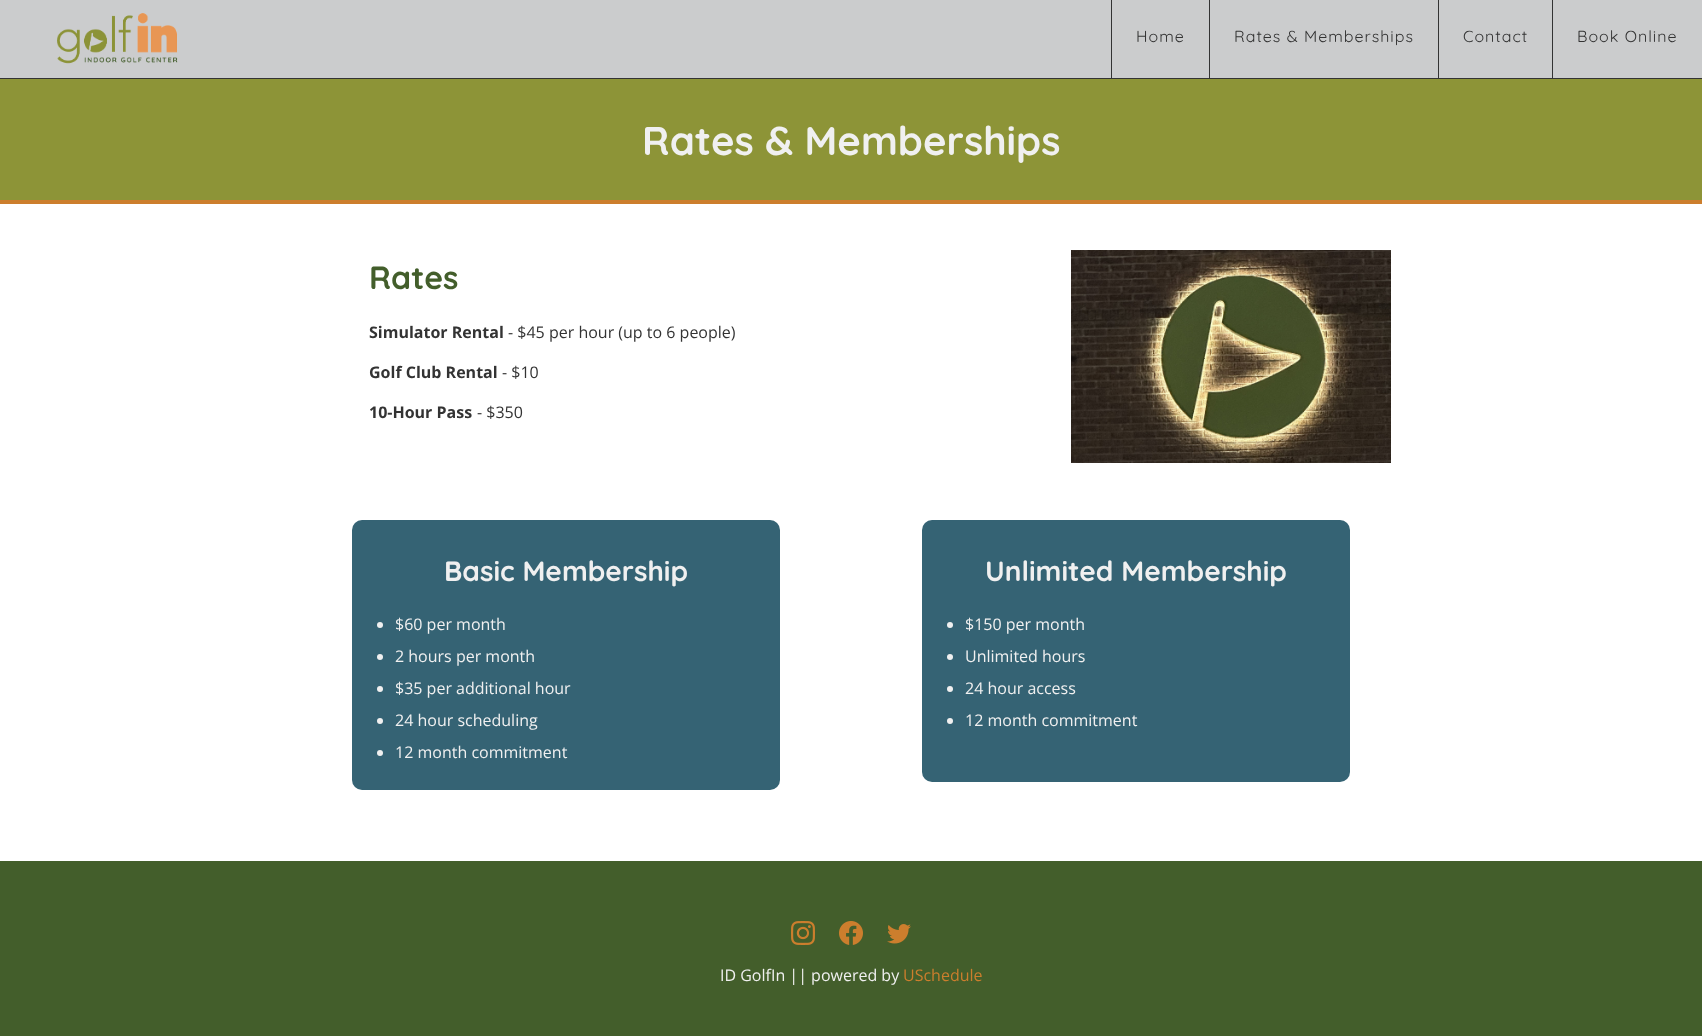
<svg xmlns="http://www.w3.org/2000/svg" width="1702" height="1036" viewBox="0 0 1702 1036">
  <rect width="100%" height="100%" fill="#fff"/>
  <path d="M0 0h1702v78H0z" fill="#cbcccd"/>
  <path d="M0 78h1702v1H0z" fill="#333"/>
  <image x="57" y="13" width="121" height="51" href="img/1.png"/>
  <path d="M1111 0h1v78H1111z" fill="#333"/>
  <path d="M1209 0h1v78H1209z" fill="#333"/>
  <path d="M1438 0h1v78H1438z" fill="#333"/>
  <path d="M1552 0h1v78H1552z" fill="#333"/>
  <path d="M0 79h1702v121H0z" fill="#8d9437"/>
  <path d="M0 200h1702v4H0z" fill="#cc7e2d"/>
  <image x="1071" y="250" width="320" height="213" href="img/2.png"/>
  <rect x="352" y="520" width="428" height="270" rx="10" fill="#356374"/>
  <circle cx="380" cy="625" r="3" fill="#f0f0f0"/>
  <circle cx="380" cy="657" r="3" fill="#f0f0f0"/>
  <circle cx="380" cy="689" r="3" fill="#f0f0f0"/>
  <circle cx="380" cy="721" r="3" fill="#f0f0f0"/>
  <circle cx="380" cy="753" r="3" fill="#f0f0f0"/>
  <rect x="922" y="520" width="428" height="262" rx="10" fill="#356374"/>
  <circle cx="950" cy="625" r="3" fill="#f0f0f0"/>
  <circle cx="950" cy="657" r="3" fill="#f0f0f0"/>
  <circle cx="950" cy="689" r="3" fill="#f0f0f0"/>
  <circle cx="950" cy="721" r="3" fill="#f0f0f0"/>
  <path d="M0 861h1702v175H0z" fill="#435e2b"/>
  <image x="791" y="921" width="24" height="24" href="img/3.png"/>
  <image x="839" y="921" width="24" height="24" href="img/4.png"/>
  <image x="887" y="924" width="24" height="20" href="img/5.png"/>
  <g font-family="Quicksand" font-size="16" letter-spacing="1" fill="#333">
    <text x="1136" y="42">Home</text>
    <text x="1234" y="42">Rates &amp; Memberships</text>
    <text x="1463" y="42">Contact</text>
    <text x="1577" y="42">Book Online</text>
  </g>
  <text x="642" y="155" font-family="Quicksand" font-size="40" font-weight="bold" fill="#f0f0f0">Rates &amp; Memberships</text>
  <text x="369" y="289" font-family="Quicksand" font-size="32" font-weight="bold" fill="#435e2b">Rates</text>
  <text x="369" y="338" font-family="Open Sans" font-size="16" font-weight="bold" fill="#333">Simulator Rental</text>
  <text x="508" y="338" font-family="Open Sans" font-size="16" fill="#333">- $45 per hour (up to 6 people)</text>
  <text x="369" y="378" font-family="Open Sans" font-size="16" font-weight="bold" fill="#333">Golf Club Rental</text>
  <text x="502" y="378" font-family="Open Sans" font-size="16" fill="#333">- $10</text>
  <text x="369" y="418" font-family="Open Sans" font-size="16" font-weight="bold" fill="#333">10-Hour Pass</text>
  <text x="477" y="418" font-family="Open Sans" font-size="16" fill="#333">- $350</text>
  <text x="444" y="581" font-family="Quicksand" font-size="28" font-weight="bold" fill="#f0f0f0">Basic Membership</text>
  <g font-family="Open Sans" font-size="16" fill="#f0f0f0">
    <text x="395" y="630">$60 per month</text>
    <text x="395" y="662">2 hours per month</text>
    <text x="395" y="694">$35 per additional hour</text>
    <text x="395" y="726">24 hour scheduling</text>
    <text x="395" y="758">12 month commitment</text>
  </g>
  <text x="985" y="581" font-family="Quicksand" font-size="28" font-weight="bold" fill="#f0f0f0">Unlimited Membership</text>
  <g font-family="Open Sans" font-size="16" fill="#f0f0f0">
    <text x="965" y="630">$150 per month</text>
    <text x="965" y="662">Unlimited hours</text>
    <text x="965" y="694">24 hour access</text>
    <text x="965" y="726">12 month commitment</text>
    <text x="720" y="981">ID GolfIn || powered by</text>
  </g>
  <text x="903" y="981" font-family="Open Sans" font-size="16" fill="#cc7e2d">USchedule</text>
</svg>
